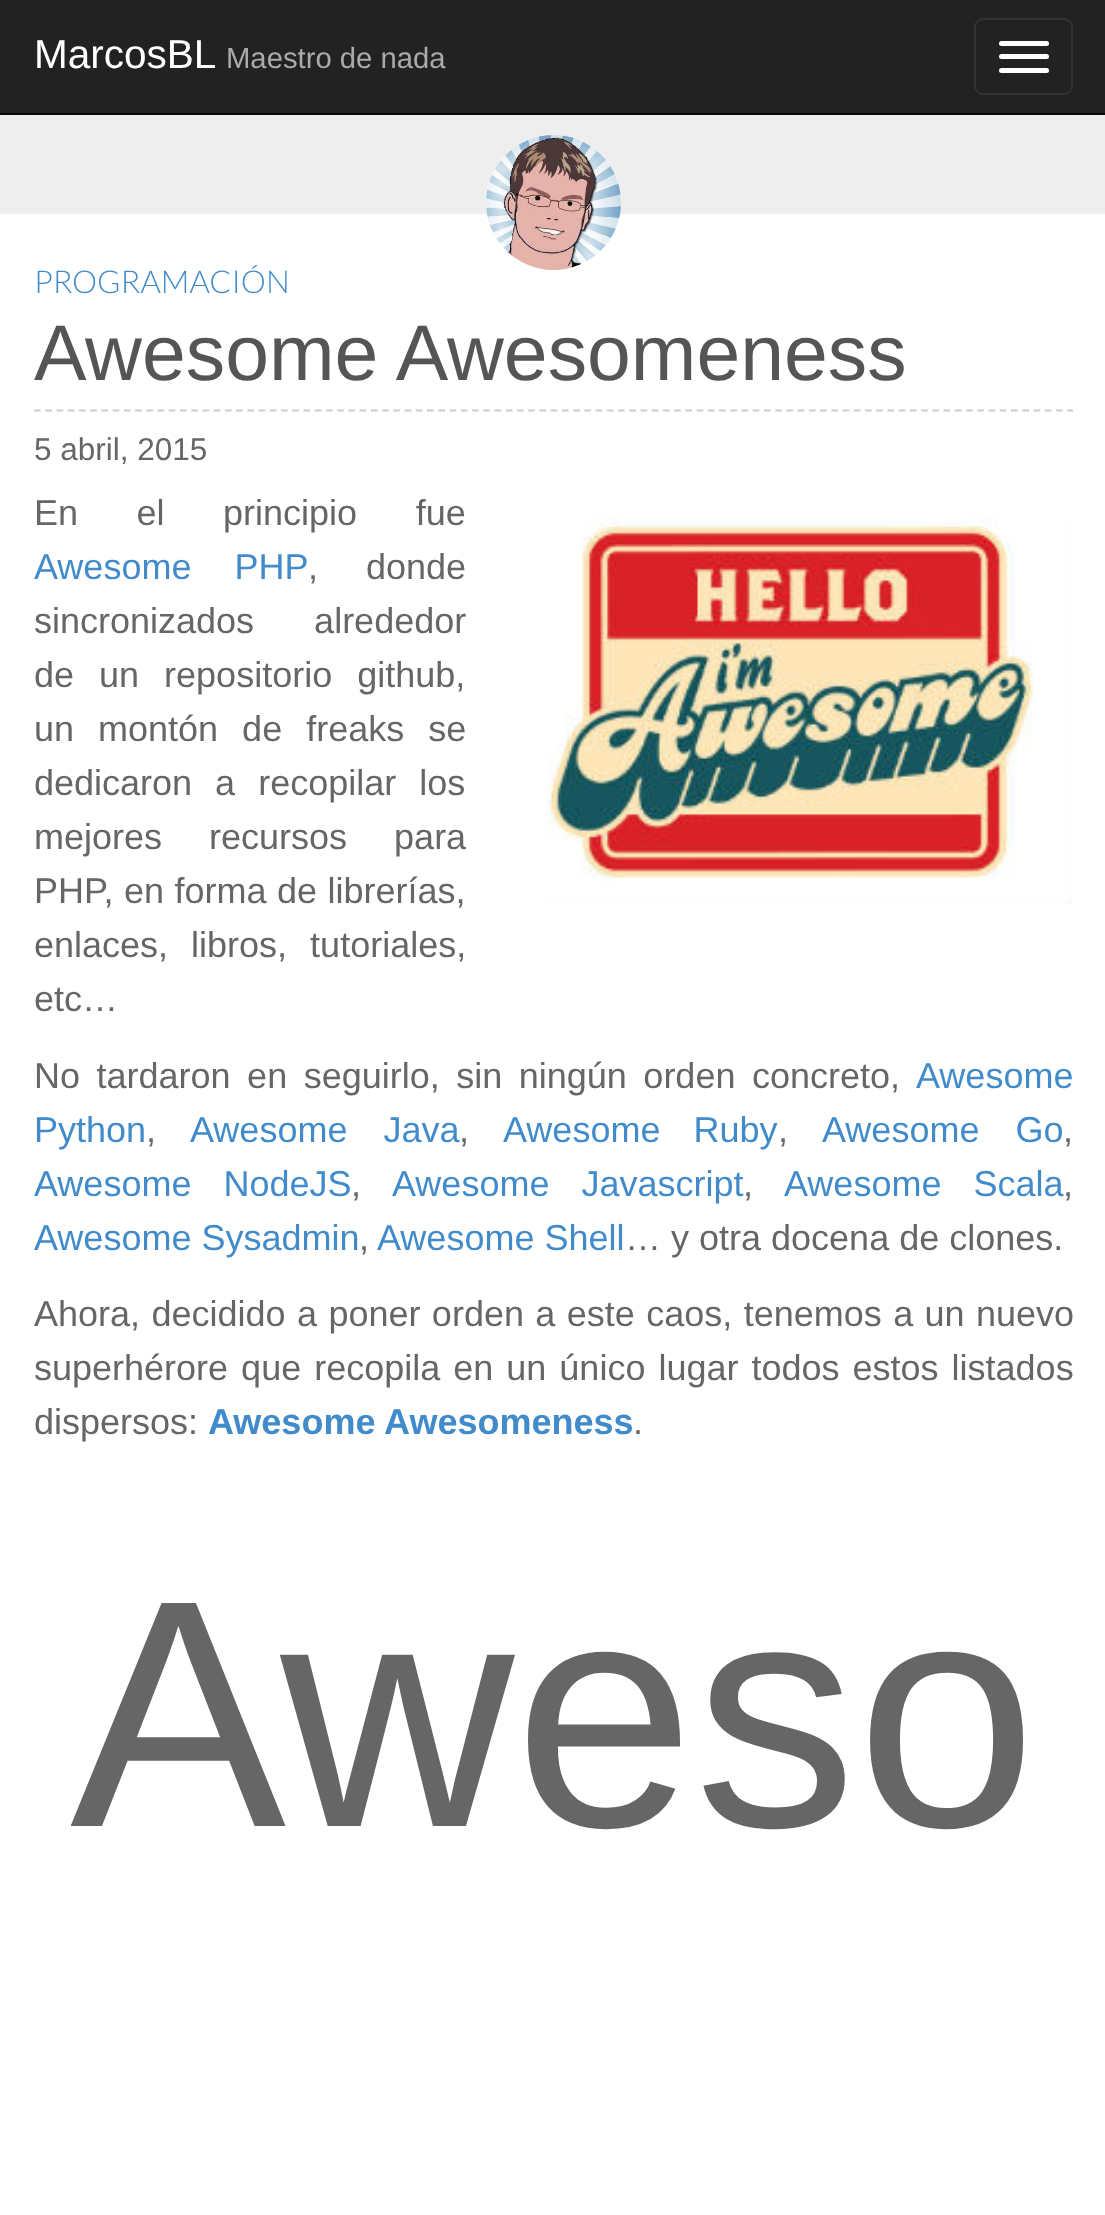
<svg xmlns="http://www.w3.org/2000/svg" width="1105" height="2215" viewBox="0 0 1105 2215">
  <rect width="100%" height="100%" fill="#fff"/>
  <path d="M0 0h1105v113H0z" fill="#222"/>
  <path d="M0 113h1105v2H0z" fill="#080808"/>
  <rect x="975" y="19" width="97" height="75" rx="8" fill="none" stroke="#333" stroke-width="2"/>
  <rect x="999" y="41" width="50" height="5" rx="2.5" fill="#fff"/>
  <rect x="999" y="54" width="50" height="5" rx="2.5" fill="#fff"/>
  <rect x="999" y="68" width="50" height="5" rx="2.5" fill="#fff"/>
  <path d="M0 115h1105v99H0z" fill="#eee"/>
  <circle cx="553.5" cy="202.5" r="67.5" fill="#fff"/>
  <image x="486" y="135" width="135" height="135" href="img/1.png"/>
  <path d="M34 410.5H1073" fill="none" stroke="#ccc" stroke-width="2.2" stroke-dasharray="6.75 4.48"/>
  <image x="546" y="517" width="527" height="388" href="img/2.png"/>
  <text x="34" y="68" font-family="Liberation Sans" font-size="40.5" fill="#fff">MarcosBL</text>
  <text x="226" y="68" font-family="Liberation Sans" font-size="29.25" fill="#aaa">Maestro de nada</text>
  <text x="34" y="293" font-family="Lato" font-size="31.5" font-weight="300" fill="#428bca">PROGRAMACIÓN</text>
  <text x="34" y="380" font-family="Liberation Sans" font-size="78.75" fill="#555">Awesome Awesomeness</text>
  <text x="34" y="460" font-family="Liberation Sans" font-size="31.5" fill="#666">5 abril, 2015</text>
  <text x="34" y="525" word-spacing="48.5" font-family="Liberation Sans" font-size="36" fill="#666">En el principio fue</text>
  <text x="34" y="579" word-spacing="33" font-family="Liberation Sans" font-size="36" fill="#428bca">Awesome PHP</text>
  <g font-family="Liberation Sans" font-size="36" fill="#666">
    <text x="308" y="579" word-spacing="38">, donde</text>
    <text x="34" y="633" word-spacing="50">sincronizados alrededor</text>
    <text x="34" y="687" word-spacing="15">de un repositorio github,</text>
    <text x="34" y="741" word-spacing="14">un montón de freaks se</text>
    <text x="34" y="795" word-spacing="13">dedicaron a recopilar los</text>
    <text x="34" y="849" word-spacing="37">mejores recursos para</text>
    <text x="34" y="903" word-spacing="0.5">PHP, en forma de librerías,</text>
    <text x="34" y="957" word-spacing="13">enlaces, libros, tutoriales,</text>
    <text x="34" y="1011">etc…</text>
    <text x="34" y="1088" word-spacing="6.5">No tardaron en seguirlo, sin ningún orden concreto,</text>
  </g>
  <g font-family="Liberation Sans" font-size="36" fill="#428bca">
    <text x="916" y="1088">Awesome</text>
    <text x="34" y="1142">Python</text>
  </g>
  <text x="146" y="1142" font-family="Liberation Sans" font-size="36" fill="#666">,</text>
  <text x="190" y="1142" word-spacing="26" font-family="Liberation Sans" font-size="36" fill="#428bca">Awesome Java</text>
  <text x="459" y="1142" font-family="Liberation Sans" font-size="36" fill="#666">,</text>
  <text x="503" y="1142" word-spacing="23" font-family="Liberation Sans" font-size="36" fill="#428bca">Awesome Ruby</text>
  <text x="778" y="1142" font-family="Liberation Sans" font-size="36" fill="#666">,</text>
  <text x="822" y="1142" word-spacing="26" font-family="Liberation Sans" font-size="36" fill="#428bca">Awesome Go</text>
  <text x="1063" y="1142" font-family="Liberation Sans" font-size="36" fill="#666">,</text>
  <text x="34" y="1196" word-spacing="22" font-family="Liberation Sans" font-size="36" fill="#428bca">Awesome NodeJS</text>
  <text x="351" y="1196" font-family="Liberation Sans" font-size="36" fill="#666">,</text>
  <text x="392" y="1196" word-spacing="22" font-family="Liberation Sans" font-size="36" fill="#428bca">Awesome Javascript</text>
  <text x="743" y="1196" font-family="Liberation Sans" font-size="36" fill="#666">,</text>
  <text x="784" y="1196" word-spacing="22" font-family="Liberation Sans" font-size="36" fill="#428bca">Awesome Scala</text>
  <text x="1063" y="1196" font-family="Liberation Sans" font-size="36" fill="#666">,</text>
  <text x="34" y="1250" font-family="Liberation Sans" font-size="36" fill="#428bca">Awesome Sysadmin</text>
  <text x="359" y="1250" font-family="Liberation Sans" font-size="36" fill="#666">,</text>
  <text x="377" y="1250" font-family="Liberation Sans" font-size="36" fill="#428bca">Awesome Shell</text>
  <g font-family="Liberation Sans" font-size="36" fill="#666">
    <text x="625" y="1250">… y otra docena de clones.</text>
    <text x="34" y="1326" word-spacing="1.4">Ahora, decidido a poner orden a este caos, tenemos a un nuevo</text>
    <text x="34" y="1380" word-spacing="3">superhérore que recopila en un único lugar todos estos listados</text>
    <text x="34" y="1434">dispersos:</text>
  </g>
  <text x="208" y="1434" font-family="Liberation Sans" font-size="36" font-weight="bold" fill="#428bca">Awesome Awesomeness</text>
  <text x="633" y="1434" font-family="Liberation Sans" font-size="36" fill="#666">.</text>
  <text x="70" y="1826" font-family="Liberation Sans" font-size="324" fill="#666">Aweso</text>
</svg>
